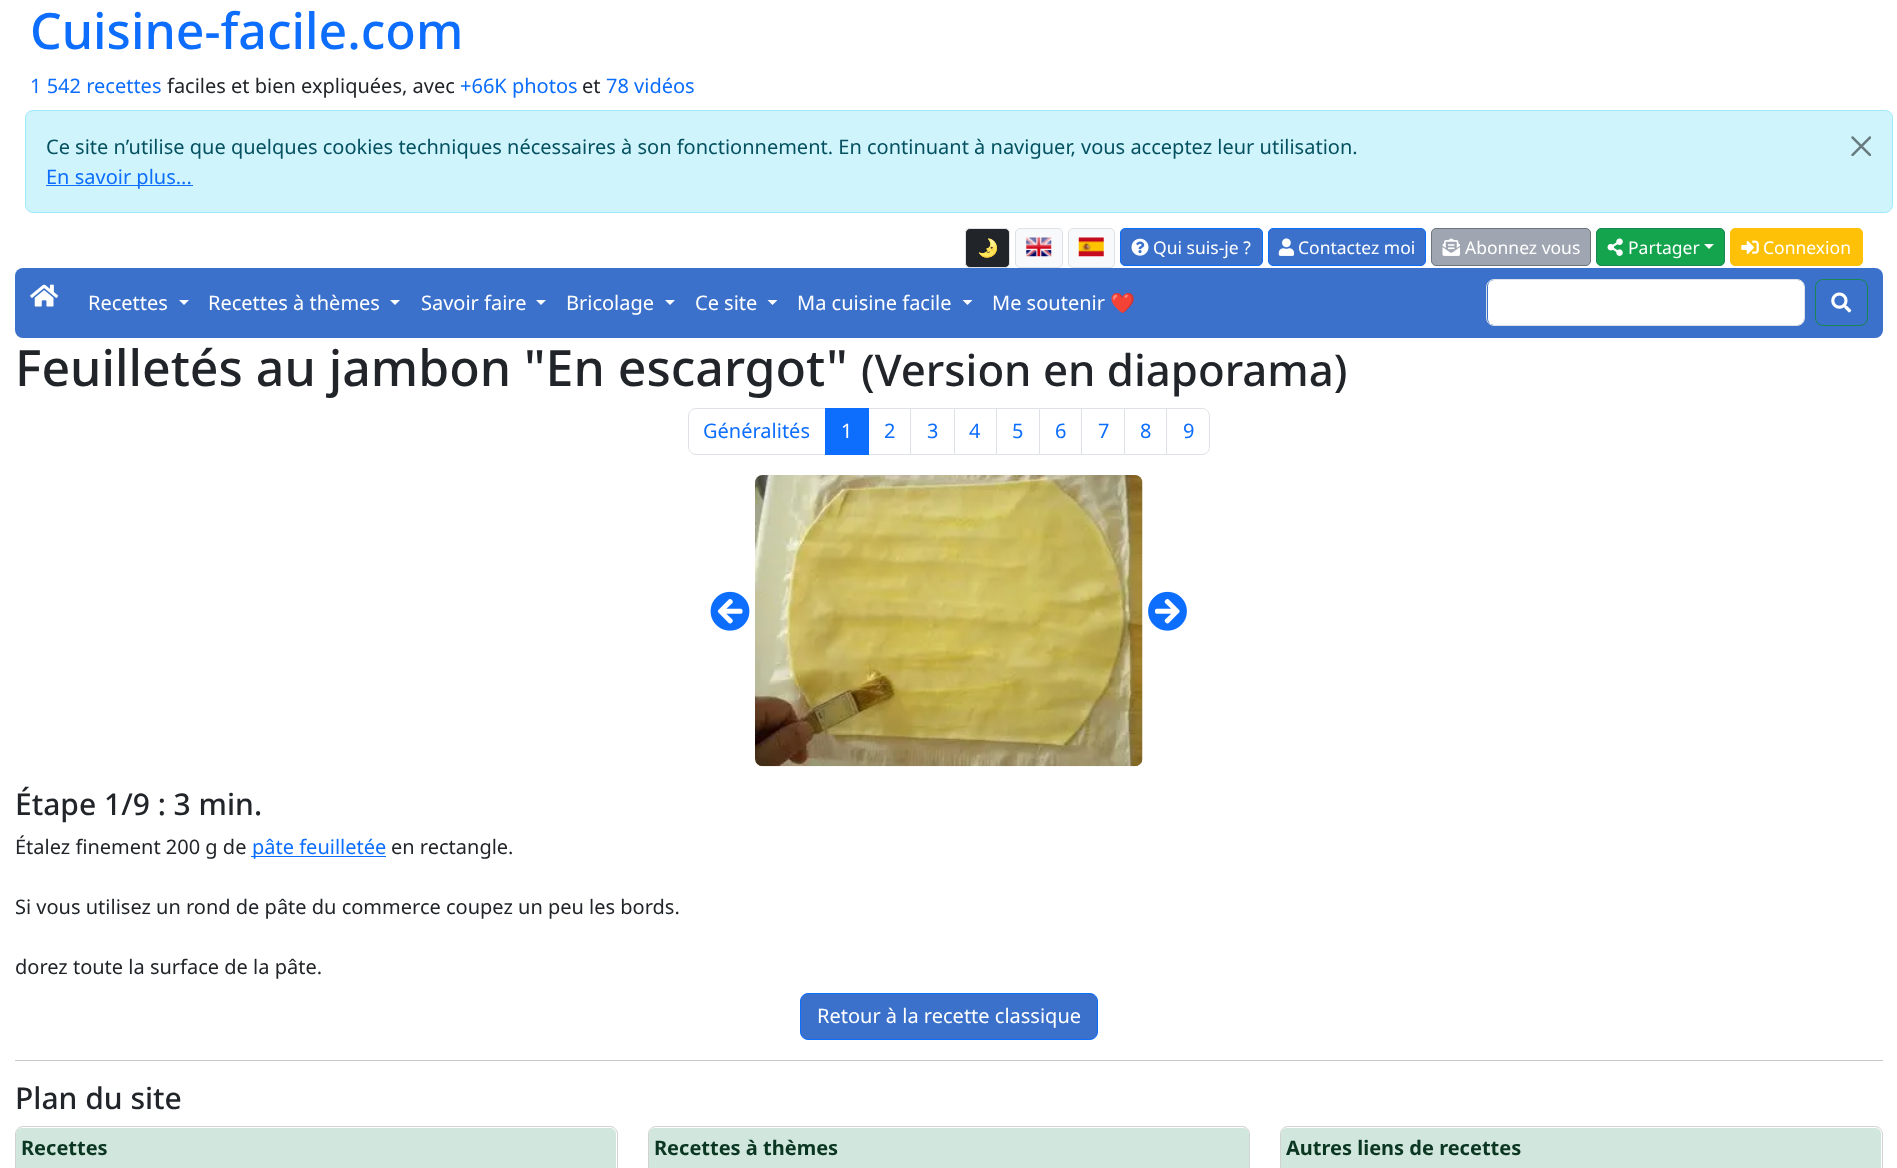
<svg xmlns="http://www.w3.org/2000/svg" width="1897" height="1168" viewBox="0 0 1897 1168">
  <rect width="100%" height="100%" fill="#fff"/>
  <rect x="25.5" y="110.5" width="1867" height="102" rx="7.5" fill="#cff4fc" stroke="#9eeaf9"/>
  <image x="1851" y="136" width="20" height="20" href="img/1.png"/>
  <path d="M46 185h147v1H46z" fill="#0d6efd"/>
  <rect x="965.5" y="228.5" width="44" height="39" rx="4.5" fill="#212529" stroke="#dee2e6"/>
  <rect x="1015.5" y="228.5" width="47" height="39" rx="4.5" fill="#f8f9fa" stroke="#dee2e6"/>
  <image x="1026" y="237" width="26" height="20" href="img/2.png"/>
  <rect x="1068.5" y="228.5" width="46" height="39" rx="4.5" fill="#f8f9fa" stroke="#dee2e6"/>
  <image x="1078" y="237" width="26" height="20" href="img/3.png"/>
  <rect x="1120.5" y="228.5" width="142" height="37" rx="4.5" fill="#3b71ca" stroke="#0d6efd"/>
  <image x="1131" y="238" width="18" height="18" href="img/4.png"/>
  <rect x="1268.5" y="228.5" width="157" height="37" rx="4.5" fill="#3b71ca" stroke="#0d6efd"/>
  <image x="1278" y="238" width="17" height="18" href="img/5.png"/>
  <rect x="1431.5" y="228.5" width="159" height="37" rx="4.5" fill="#9fa6b2" stroke="#6c757d"/>
  <image x="1442" y="238" width="18" height="18" href="img/6.png"/>
  <rect x="1596.5" y="228.5" width="128" height="37" rx="4.5" fill="#14a44d" stroke="#198754"/>
  <image x="1607" y="238" width="16" height="18" href="img/7.png"/>
  <path d="M1704 244H1714L1709 249Z" fill="#fff"/>
  <rect x="1730.5" y="228.5" width="132" height="37" rx="4.5" fill="#ffc107" stroke="#ffc107"/>
  <image x="1741" y="240" width="18" height="14" href="img/8.png"/>
  <rect x="15" y="268" width="1868" height="70" rx="8" fill="#3b71ca"/>
  <image x="30" y="284" width="29" height="23" href="img/9.png"/>
  <path d="M179 300H189L184 305Z" fill="#fff"/>
  <path d="M390 300H400L395 305Z" fill="#fff"/>
  <path d="M536 300H546L541 305Z" fill="#fff"/>
  <path d="M665 300H675L670 305Z" fill="#fff"/>
  <path d="M767.5 300H777.5L772.5 305Z" fill="#fff"/>
  <path d="M962.5 300H972.5L967.5 305Z" fill="#fff"/>
  <rect x="1488" y="280" width="316" height="45" rx="6" fill="#fff"/>
  <rect x="1486.5" y="279.5" width="318" height="46" rx="7.5" fill="none" stroke="#dee2e6"/>
  <rect x="1815.5" y="279.5" width="52" height="46" rx="7.5" fill="none" stroke="#198754"/>
  <image x="1831" y="292" width="21" height="21" href="img/10.png"/>
  <path d="M696 408.5H825.5V454.5H696C692 454.5 688.5 451 688.5 447V416C688.5 412 692 408.5 696 408.5Z" fill="none" stroke="#dee2e6"/>
  <path d="M868.5 408.5h42v46H868.5z" fill="none" stroke="#dee2e6"/>
  <path d="M825 408h44v47H825z" fill="#0d6efd"/>
  <path d="M910.5 408.5h44v46H910.5z" fill="none" stroke="#dee2e6"/>
  <path d="M954.5 408.5h43v46H954.5z" fill="none" stroke="#dee2e6"/>
  <path d="M997 409h1v45H997z" fill="#fff"/>
  <path d="M996.5 408.5h43v46H996.5z" fill="none" stroke="#dee2e6"/>
  <path d="M1039.5 408.5h43v46H1039.5z" fill="none" stroke="#dee2e6"/>
  <path d="M1082 409h1v45H1082z" fill="#fff"/>
  <path d="M1081.5 408.5h43v46H1081.5z" fill="none" stroke="#dee2e6"/>
  <path d="M1124.5 408.5h43v46H1124.5z" fill="none" stroke="#dee2e6"/>
  <path d="M1166.5 408.5H1202C1206 408.5 1209.5 412 1209.5 416V447C1209.5 451 1206 454.5 1202 454.5H1166.5Z" fill="#fff" stroke="#dee2e6"/>
  <image x="710" y="591" width="40" height="40" href="img/11.png"/>
  <image x="755" y="475" width="388" height="292" href="img/12.png"/>
  <image x="1148" y="591" width="39" height="40" href="img/13.png"/>
  <path d="M251 856h135v1H251z" fill="#0d6efd"/>
  <rect x="800.5" y="993.5" width="297" height="46" rx="7.5" fill="#3b71ca" stroke="#0d6efd"/>
  <path d="M15 1060h1868v1H15z" fill="#c8c9ca"/>
  <rect x="15.5" y="1126.5" width="602" height="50" rx="7.5" fill="none" stroke="#d2d2d2"/>
  <path d="M22 1128H610C613.5 1128 616 1130.5 616 1134V1168H16V1134C16 1130.5 18.5 1128 22 1128Z" fill="#d1e7dd"/>
  <rect x="648.5" y="1126.5" width="601" height="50" rx="7.5" fill="none" stroke="#d2d2d2"/>
  <path d="M655 1128H1243C1246.5 1128 1249 1130.5 1249 1134V1168H649V1134C649 1130.5 651.5 1128 655 1128Z" fill="#d1e7dd"/>
  <rect x="1280.5" y="1126.5" width="602" height="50" rx="7.5" fill="none" stroke="#d2d2d2"/>
  <path d="M1287 1128H1875C1878.5 1128 1881 1130.5 1881 1134V1168H1281V1134C1281 1130.5 1283.5 1128 1287 1128Z" fill="#d1e7dd"/>
  <text x="30" y="49" font-family="Noto Sans" font-size="50" font-weight="500" fill="#0d6efd">Cuisine-facile.com</text>
  <text x="30" y="93" font-family="Noto Sans" font-size="20" fill="#0d6efd">1 542 recettes</text>
  <text x="167" y="93" font-family="Noto Sans" font-size="20" fill="#212529">faciles et bien expliquées, avec</text>
  <text x="460" y="93" font-family="Noto Sans" font-size="20" fill="#0d6efd">+66K photos</text>
  <text x="582" y="93" font-family="Noto Sans" font-size="20" fill="#212529">et</text>
  <text x="606" y="93" font-family="Noto Sans" font-size="20" fill="#0d6efd">78 vidéos</text>
  <text x="46" y="154" font-family="Noto Sans" font-size="20" fill="#055160">Ce site n’utilise que quelques cookies techniques nécessaires à son fonctionnement. En continuant à naviguer, vous acceptez leur utilisation.</text>
  <text x="46" y="184" font-family="Noto Sans" font-size="20" fill="#0d6efd">En savoir plus...</text>
  <text x="977" y="254" font-family="Noto Color Emoji" font-size="17.5" fill="#fff">🌛</text>
  <g font-family="Noto Sans" font-size="17.5" fill="#fff">
    <text x="1153" y="254">Qui suis-je ?</text>
    <text x="1298" y="254">Contactez moi</text>
    <text x="1465" y="254">Abonnez vous</text>
    <text x="1628" y="254">Partager</text>
    <text x="1763" y="254">Connexion</text>
  </g>
  <g font-family="Noto Sans" font-size="20" fill="#fff">
    <text x="88" y="310">Recettes</text>
    <text x="208" y="310">Recettes à thèmes</text>
    <text x="421" y="310">Savoir faire</text>
    <text x="566" y="310">Bricolage</text>
    <text x="695" y="310">Ce site</text>
    <text x="797" y="310">Ma cuisine facile</text>
    <text x="992" y="310">Me soutenir</text>
  </g>
  <text x="1110" y="310" font-family="Noto Color Emoji" font-size="20" fill="#fff">❤️</text>
  <text x="15" y="386" font-family="Noto Sans" font-size="50" font-weight="500" fill="#212529">Feuilletés au jambon "En escargot"</text>
  <text x="861" y="386" font-family="Noto Sans" font-size="43.75" font-weight="500" fill="#212529">(Version en diaporama)</text>
  <text x="703" y="438" font-family="Noto Sans" font-size="20" fill="#0d6efd">Généralités</text>
  <text x="841" y="438" font-family="Noto Sans" font-size="20" fill="#fff">1</text>
  <g font-family="Noto Sans" font-size="20" fill="#0d6efd">
    <text x="884" y="438">2</text>
    <text x="927" y="438">3</text>
    <text x="969" y="438">4</text>
    <text x="1012" y="438">5</text>
    <text x="1055" y="438">6</text>
    <text x="1098" y="438">7</text>
    <text x="1140" y="438">8</text>
    <text x="1183" y="438">9</text>
  </g>
  <text x="15" y="815" font-family="Noto Sans" font-size="30" font-weight="500" fill="#212529">Étape 1/9 : 3 min.</text>
  <text x="15" y="854" font-family="Noto Sans" font-size="20" fill="#212529">Étalez finement 200 g de</text>
  <text x="252" y="854" font-family="Noto Sans" font-size="20" fill="#0d6efd">pâte feuilletée</text>
  <g font-family="Noto Sans" font-size="20" fill="#212529">
    <text x="391" y="854">en rectangle.</text>
    <text x="15" y="914">Si vous utilisez un rond de pâte du commerce coupez un peu les bords.</text>
    <text x="15" y="974">dorez toute la surface de la pâte.</text>
  </g>
  <text x="817" y="1023" font-family="Noto Sans" font-size="20" fill="#fff">Retour à la recette classique</text>
  <text x="15" y="1109" font-family="Noto Sans" font-size="30" font-weight="500" fill="#212529">Plan du site</text>
  <g font-family="Noto Sans" font-size="20" font-weight="bold" fill="#0a3622">
    <text x="21" y="1155">Recettes</text>
    <text x="654" y="1155">Recettes à thèmes</text>
    <text x="1286" y="1155">Autres liens de recettes</text>
  </g>
</svg>
